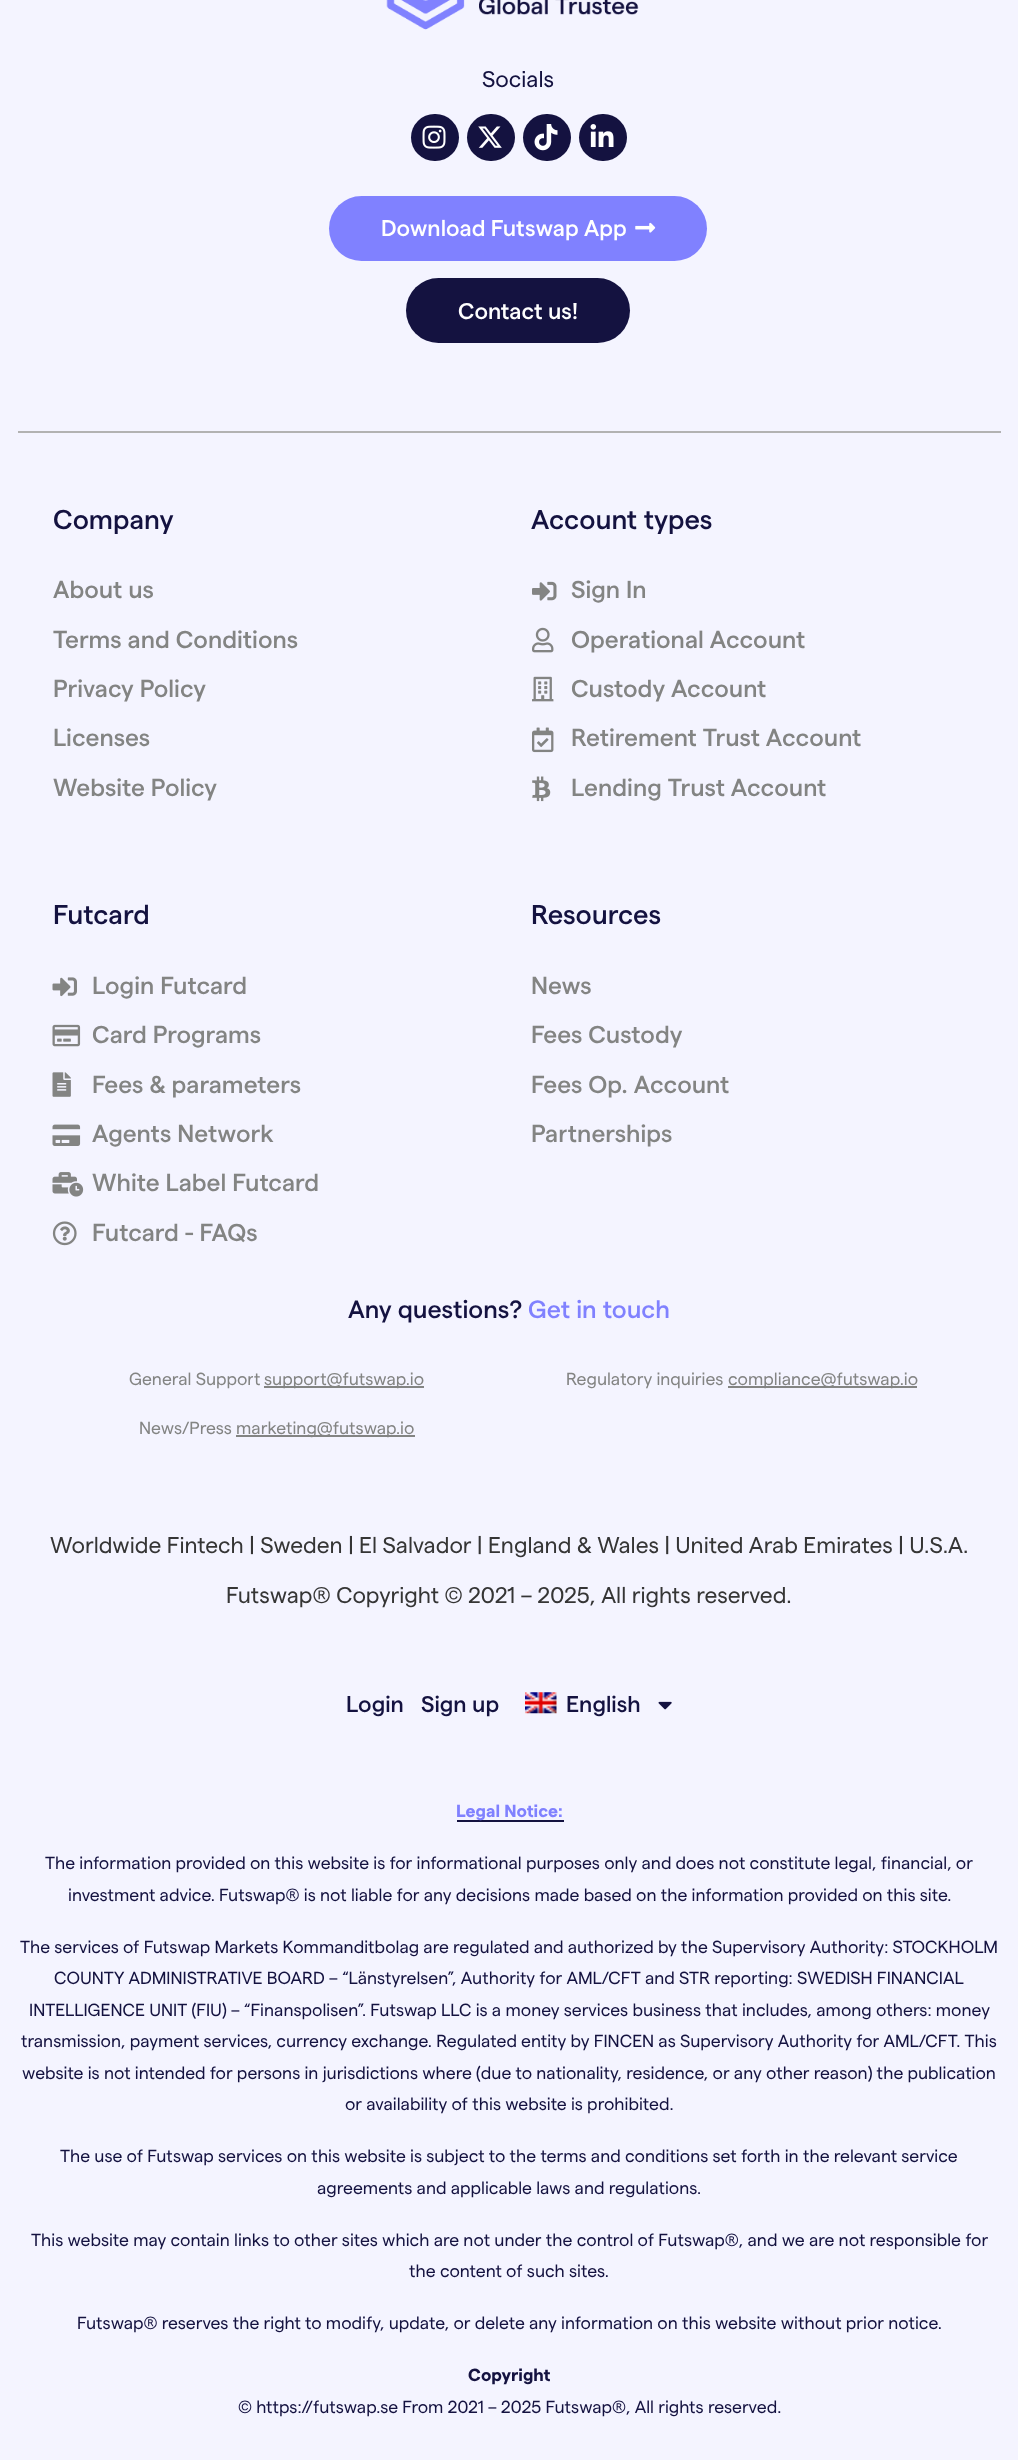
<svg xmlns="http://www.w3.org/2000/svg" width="1018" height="2460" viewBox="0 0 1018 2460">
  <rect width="100%" height="100%" fill="#f4f4ff"/>
  <image x="386" y="0" width="253" height="30" href="img/1.png"/>
  <rect x="411" y="114" width="48" height="47" rx="23.5" fill="#141240"/>
  <image x="422" y="125" width="24" height="24" href="img/2.png"/>
  <rect x="467" y="114" width="48" height="47" rx="23.5" fill="#141240"/>
  <image x="478" y="126" width="24" height="22" href="img/3.png"/>
  <rect x="523" y="114" width="48" height="47" rx="23.5" fill="#141240"/>
  <image x="534" y="124" width="24" height="27" href="img/4.png"/>
  <rect x="579" y="114" width="48" height="47" rx="23.5" fill="#141240"/>
  <image x="590" y="124" width="24" height="23" href="img/5.png"/>
  <rect x="329" y="196" width="378" height="65" rx="32.5" fill="#8081ff"/>
  <image x="635" y="222" width="21" height="11" href="img/6.png"/>
  <rect x="406" y="278" width="224" height="65" rx="32.5" fill="#141240"/>
  <path d="M18 431h983v2H18z" fill="#b2b2b2"/>
  <image x="532" y="581" width="25" height="20" href="img/7.png"/>
  <image x="532" y="627" width="22" height="26" href="img/8.png"/>
  <image x="532" y="676" width="22" height="26" href="img/9.png"/>
  <image x="532" y="727" width="22" height="26" href="img/10.png"/>
  <image x="532" y="776" width="19" height="26" href="img/11.png"/>
  <image x="52" y="977" width="25" height="20" href="img/12.png"/>
  <image x="52" y="1024" width="29" height="23" href="img/13.png"/>
  <image x="52" y="1072" width="19" height="25" href="img/14.png"/>
  <image x="52" y="1124" width="29" height="22" href="img/15.png"/>
  <image x="52" y="1172" width="32" height="25" href="img/16.png"/>
  <image x="52" y="1221" width="25" height="25" href="img/17.png"/>
  <path d="M264 1386h160v2H264z" fill="#838483"/>
  <path d="M728 1386h189v2H728z" fill="#838483"/>
  <path d="M236 1435h179v2H236z" fill="#838483"/>
  <image x="525" y="1692" width="32" height="22" href="img/18.png"/>
  <image x="658" y="1701" width="14" height="9" href="img/19.png"/>
  <path d="M457 1820h107v2H457z" fill="#141240"/>
  <text x="482" y="87" font-family="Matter" font-size="22.75" fill="#141240">Socials</text>
  <g font-family="Matter" font-size="22.75" font-weight="500" fill="#fff">
    <text x="381" y="236">Download Futswap App</text>
    <text x="458" y="319">Contact us!</text>
  </g>
  <text x="53" y="529" font-family="Matter" font-size="27.25" font-weight="500" fill="#141240">Company</text>
  <g font-family="Matter" font-size="24.5" font-weight="500" fill="#838483">
    <text x="53" y="598">About us</text>
    <text x="53" y="648">Terms and Conditions</text>
    <text x="53" y="697">Privacy Policy</text>
    <text x="53" y="746">Licenses</text>
    <text x="53" y="796">Website Policy</text>
  </g>
  <text x="531" y="529" font-family="Matter" font-size="27.25" font-weight="500" fill="#141240">Account types</text>
  <g font-family="Matter" font-size="24.5" font-weight="500" fill="#838483">
    <text x="571" y="598">Sign In</text>
    <text x="571" y="648">Operational Account</text>
    <text x="571" y="697">Custody Account</text>
    <text x="571" y="746">Retirement Trust Account</text>
    <text x="571" y="796">Lending Trust Account</text>
  </g>
  <text x="53" y="924" font-family="Matter" font-size="27.25" font-weight="500" fill="#141240">Futcard</text>
  <g font-family="Matter" font-size="24.5" font-weight="500" fill="#838483">
    <text x="92" y="994">Login Futcard</text>
    <text x="92" y="1043">Card Programs</text>
    <text x="92" y="1093">Fees &amp; parameters</text>
    <text x="92" y="1142">Agents Network</text>
    <text x="92" y="1191">White Label Futcard</text>
    <text x="92" y="1241">Futcard - FAQs</text>
  </g>
  <text x="531" y="924" font-family="Matter" font-size="27.25" font-weight="500" fill="#141240">Resources</text>
  <g font-family="Matter" font-size="24.5" font-weight="500" fill="#838483">
    <text x="531" y="994">News</text>
    <text x="531" y="1043">Fees Custody</text>
    <text x="531" y="1093">Fees Op. Account</text>
    <text x="531" y="1142">Partnerships</text>
  </g>
  <text x="348" y="1318" font-family="Matter" font-size="25" font-weight="500" fill="#141240">Any questions?</text>
  <text x="528" y="1318" font-family="Matter" font-size="25" font-weight="500" fill="#8081ff">Get in touch</text>
  <g font-family="Matter" font-size="17.5" fill="#838483">
    <text x="129" y="1385">General Support</text>
    <text x="264" y="1385">support@futswap.io</text>
    <text x="566" y="1385">Regulatory inquiries</text>
    <text x="728" y="1385">compliance@futswap.io</text>
    <text x="139" y="1434">News/Press</text>
    <text x="236" y="1434">marketing@futswap.io</text>
  </g>
  <g font-family="Matter" font-size="22.75" fill="#353535">
    <text x="50" y="1553">Worldwide Fintech | Sweden | El Salvador | England &amp; Wales | United Arab Emirates | U.S.A.</text>
    <text x="226" y="1603">Futswap® Copyright © 2021 – 2025, All rights reserved.</text>
  </g>
  <g font-family="Matter" font-size="22.75" font-weight="500" fill="#141240">
    <text x="346" y="1712">Login</text>
    <text x="421" y="1712">Sign up</text>
    <text x="566" y="1712">English</text>
  </g>
  <text x="456" y="1817" font-family="Matter" font-size="17.5" font-weight="bold" fill="#8081ff">Legal Notice:</text>
  <g font-family="Matter" font-size="17.5" fill="#141240">
    <text x="45" y="1869">The information provided on this website is for informational purposes only and does not constitute legal, financial, or</text>
    <text x="68" y="1901">investment advice. Futswap® is not liable for any decisions made based on the information provided on this site.</text>
    <text x="20" y="1953">The services of Futswap Markets Kommanditbolag are regulated and authorized by the Supervisory Authority: STOCKHOLM</text>
    <text x="54" y="1984">COUNTY ADMINISTRATIVE BOARD – “Länstyrelsen”, Authority for AML/CFT and STR reporting: SWEDISH FINANCIAL</text>
    <text x="29" y="2016">INTELLIGENCE UNIT (FIU) – “Finanspolisen”. Futswap LLC is a money services business that includes, among others: money</text>
    <text x="21" y="2047">transmission, payment services, currency exchange. Regulated entity by FINCEN as Supervisory Authority for AML/CFT. This</text>
    <text x="22" y="2079">website is not intended for persons in jurisdictions where (due to nationality, residence, or any other reason) the publication</text>
    <text x="345" y="2110">or availability of this website is prohibited.</text>
    <text x="60" y="2162">The use of Futswap services on this website is subject to the terms and conditions set forth in the relevant service</text>
    <text x="317" y="2194">agreements and applicable laws and regulations.</text>
    <text x="31" y="2246">This website may contain links to other sites which are not under the control of Futswap®, and we are not responsible for</text>
    <text x="409" y="2277">the content of such sites.</text>
    <text x="77" y="2329">Futswap® reserves the right to modify, update, or delete any information on this website without prior notice.</text>
  </g>
  <text x="468" y="2381" font-family="Matter" font-size="17.5" font-weight="bold" fill="#141240">Copyright</text>
  <text x="238" y="2413" font-family="Matter" font-size="17.5" fill="#141240">© https://futswap.se From 2021 – 2025 Futswap®, All rights reserved.</text>
</svg>
